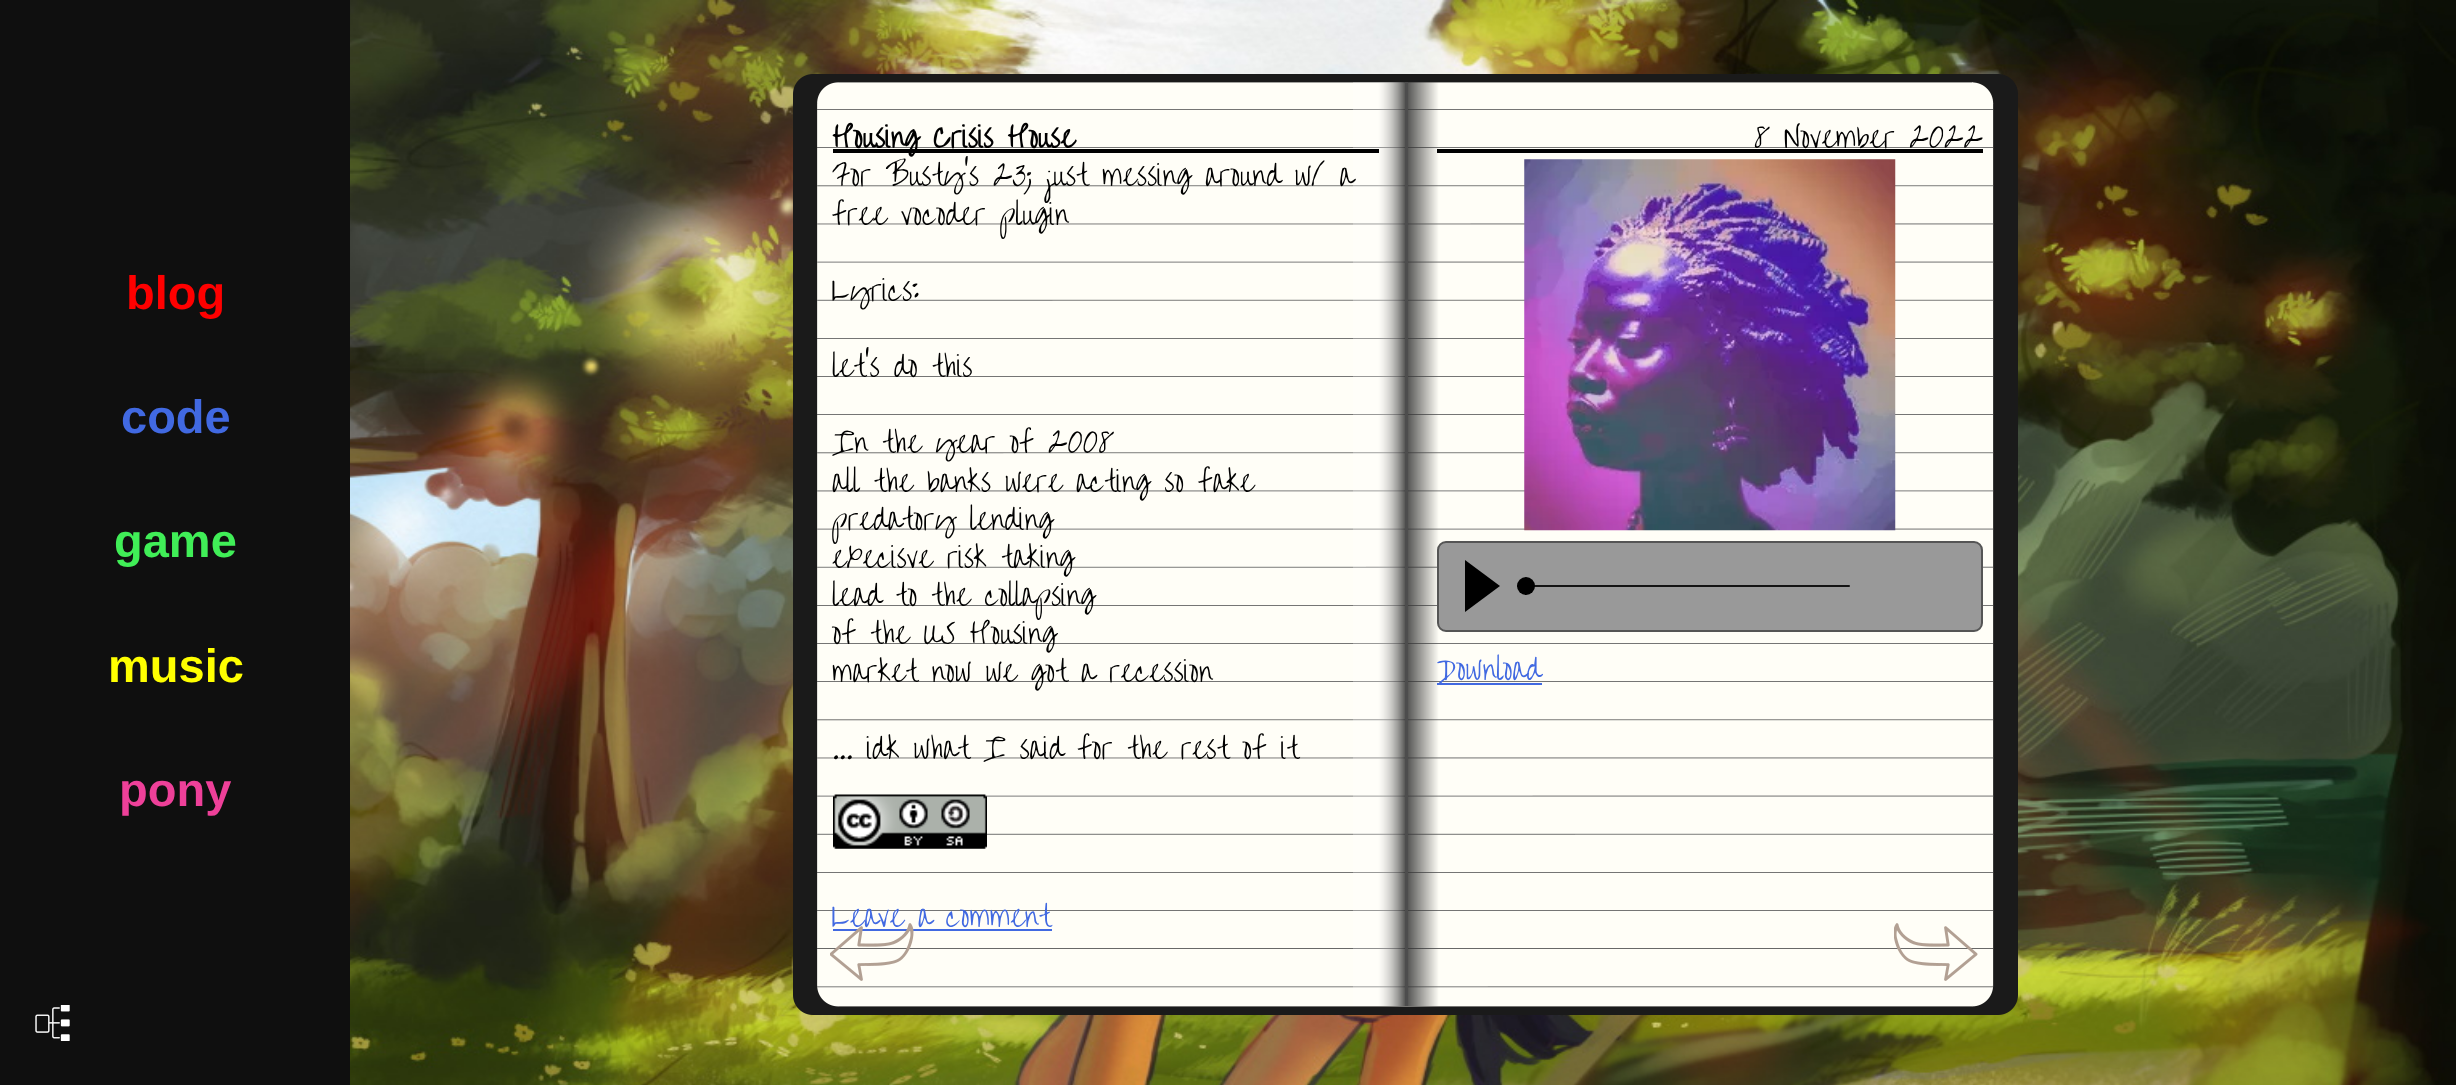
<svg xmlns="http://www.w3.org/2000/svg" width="2456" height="1085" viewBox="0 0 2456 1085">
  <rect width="100%" height="100%" fill="#fff"/>
  <image x="350" y="0" width="2106" height="1085" href="img/1.png"/>
  <path d="M0 0h350v1085H0z" fill="#0f0f0f"/>
  <image x="35" y="1005" width="35" height="36" href="img/2.png"/>
  <image x="793" y="74" width="1225" height="941" href="img/3.png"/>
  <path d="M833 149h546v4H833z" fill="#000"/>
  <image x="833" y="794" width="154" height="55" href="img/4.png"/>
  <path d="M833 929h219v2H833z" fill="#4169e1"/>
  <path d="M1437 149h546v4H1437z" fill="#000"/>
  <image x="1524" y="159" width="372" height="372" href="img/5.png"/>
  <rect x="1438" y="542" width="544" height="89" rx="8" fill="#999" stroke="#555" stroke-width="2"/>
  <path d="M1465 560V612L1500 586Z" fill="#000"/>
  <image x="1517" y="585" width="333" height="2" href="img/6.png"/>
  <circle cx="1526" cy="586" r="9" fill="#000"/>
  <path d="M1437 683h105v2H1437z" fill="#4169e1"/>
  <image x="1894" y="923" width="84" height="58" href="img/8.png"/>
  <text x="126" y="309" font-family="Liberation Sans" font-size="47" font-weight="bold" fill="#f00">blog</text>
  <text x="121" y="433" font-family="Liberation Sans" font-size="47" font-weight="bold" fill="#4169e1">code</text>
  <text x="114" y="557" font-family="Liberation Sans" font-size="47" font-weight="bold" fill="#40ee57">game</text>
  <text x="108" y="682" font-family="Liberation Sans" font-size="47" font-weight="bold" fill="#ff0">music</text>
  <text x="119" y="806" font-family="Liberation Sans" font-size="47" font-weight="bold" fill="#ee4099">pony</text>
  <text x="832" y="148" font-family="Over the Rainbow" font-size="28" font-weight="bold" fill="#000">Housing Crisis House</text>
  <g font-family="Over the Rainbow" font-size="28" fill="#000">
    <text x="832" y="186">For Busty's 23; just messing around w/ a</text>
    <text x="832" y="225">free vocoder plugin</text>
    <text x="832" y="301">Lyrics:</text>
    <text x="832" y="377">let's do this</text>
    <text x="832" y="453">In the year of 2008</text>
    <text x="832" y="492">all the banks were acting so fake</text>
    <text x="832" y="530">predatory lending</text>
    <text x="832" y="568">execisve risk taking</text>
    <text x="832" y="606">lead to the collapsing</text>
    <text x="832" y="644">of the US Housing</text>
    <text x="832" y="682">market now we got a recession</text>
    <text x="832" y="759">... idk what I said for the rest of it</text>
  </g>
  <text x="832" y="927" font-family="Over the Rainbow" font-size="28" fill="#4169e1">Leave a comment</text>
  <text x="1754" y="148" font-family="Over the Rainbow" font-size="28" fill="#000">8 November 2022</text>
  <text x="1437" y="680" font-family="Over the Rainbow" font-size="28" fill="#4169e1">Download</text>
  <image x="830" y="923" width="84" height="58" href="img/7.png"/>
</svg>
